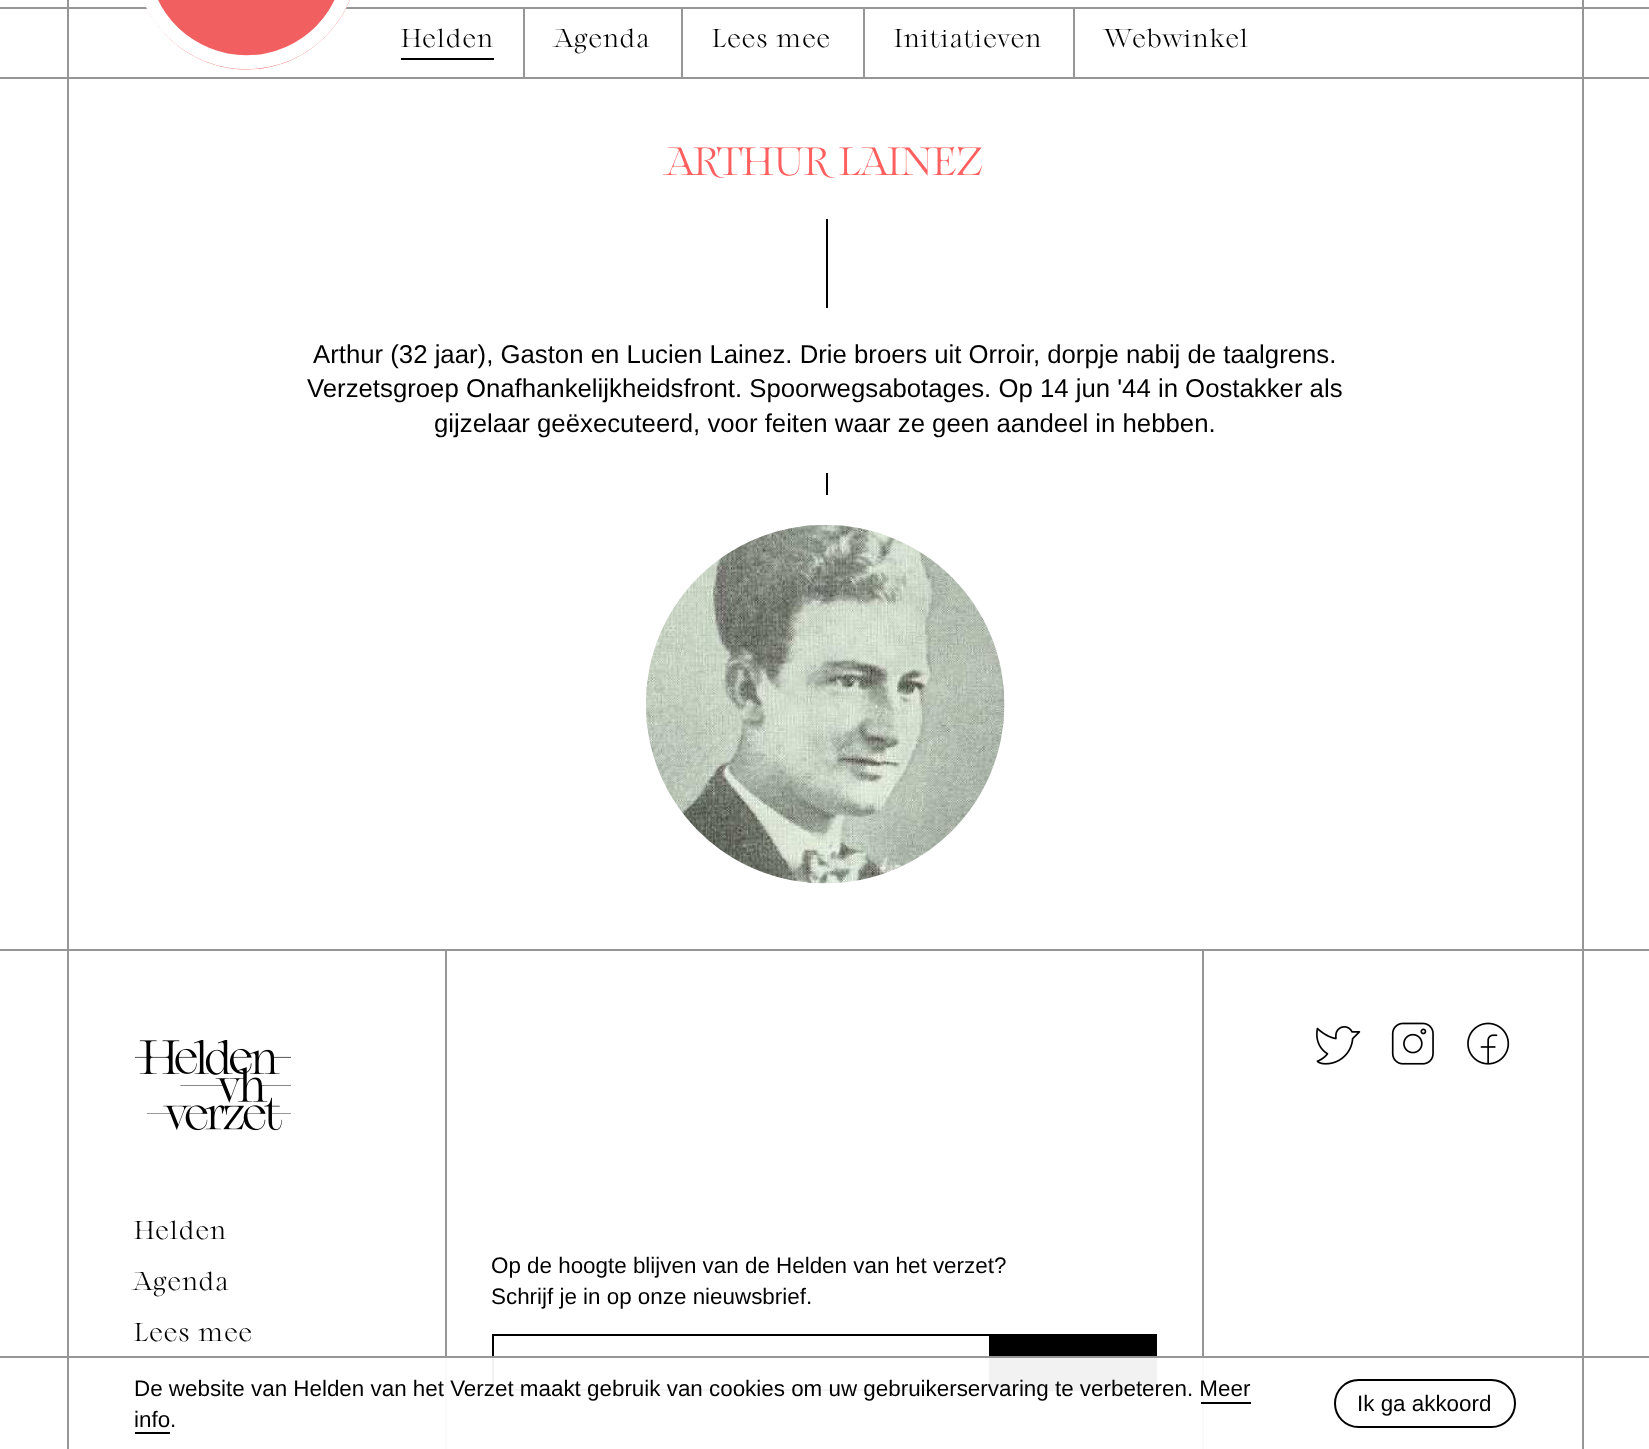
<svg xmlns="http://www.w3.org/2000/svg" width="1649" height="1449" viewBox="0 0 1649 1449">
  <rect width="100%" height="100%" fill="#fff"/>
  <path d="M0 7h1649v2H0z" fill="#969696"/>
  <path d="M0 77h1649v2H0z" fill="#969696"/>
  <path d="M445 950h2v499H445z" fill="#969696"/>
  <path d="M1202 950h2v499H1202z" fill="#969696"/>
  <path d="M0 949h1649v2H0z" fill="#969696"/>
  <path d="M493 1335h497v55H493z" fill="none" stroke="#000" stroke-width="2"/>
  <path d="M991 1334h166v57H991z" fill="#000"/>
  <path d="M0 1356h1649v2H0z" fill="#969696"/>
  <path d="M67 0h2v1449H67z" fill="#969696"/>
  <path d="M223-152C284-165 343-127 356-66C369-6 330 54 270 67C209 80 150 41 137-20C124-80 163-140 223-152Z" fill="#f15f61"/>
  <path d="M224.5-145.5C281.5-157.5 337-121.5 349-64.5C361-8 325 48 268 60C211.5 72 155.5 35.5 143.5-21C131.5-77.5 168-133.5 224.5-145.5Z" fill="none" stroke="#fff" stroke-width="14"/>
  <path d="M523 9h2v68H523z" fill="#969696"/>
  <path d="M401 58h93v2H401z" fill="#000"/>
  <path d="M681 9h2v68H681z" fill="#969696"/>
  <path d="M863 9h2v68H863z" fill="#969696"/>
  <path d="M1073 9h2v68H1073z" fill="#969696"/>
  <path d="M1582 0h2v1449H1582z" fill="#969696"/>
  <path d="M826 219h2v276H826z" fill="#000"/>
  <path d="M826 308h2v165H826z" fill="#fff"/>
  <image x="646" y="524" width="359" height="360" href="img/1.png"/>
  <image x="135" y="1040" width="156" height="91" href="img/2.png"/>
  <image x="1316" y="1026" width="45" height="39" href="img/3.png"/>
  <image x="1391" y="1022" width="43" height="43" href="img/4.png"/>
  <image x="1467" y="1022" width="43" height="43" href="img/5.png"/>
  <path d="M445 1358h759v91H445z" fill="#fffffff2"/>
  <path d="M1201 1402h50v2H1201z" fill="#000"/>
  <path d="M135 1432h35v2H135z" fill="#000"/>
  <rect x="1335" y="1380" width="180" height="47" rx="23.5" fill="none" stroke="#000" stroke-width="2"/>
  <g font-family="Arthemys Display" font-size="25.75" font-weight="300" letter-spacing="1.25" fill="#000">
    <text x="401" y="47">Helden</text>
    <text x="555" y="47">Agenda</text>
    <text x="712" y="47">Lees mee</text>
    <text x="894" y="47">Initiatieven</text>
    <text x="1104" y="47">Webwinkel</text>
  </g>
  <text x="667" y="175" font-family="Arthemys Display" font-size="39.25" font-weight="300" fill="#ff605f">ARTHUR LAINEZ</text>
  <g font-family="Liberation Sans" font-size="25.75" fill="#000">
    <text x="313" y="363">Arthur (32 jaar), Gaston en Lucien Lainez. Drie broers uit Orroir, dorpje nabij de taalgrens.</text>
    <text x="307" y="397">Verzetsgroep Onafhankelijkheidsfront. Spoorwegsabotages. Op 14 jun '44 in Oostakker als</text>
    <text x="434" y="432">gijzelaar geëxecuteerd, voor feiten waar ze geen aandeel in hebben.</text>
  </g>
  <g font-family="Arthemys Display" font-size="25.75" font-weight="300" letter-spacing="1.25" fill="#000">
    <text x="134" y="1239">Helden</text>
    <text x="134" y="1290">Agenda</text>
    <text x="134" y="1341">Lees mee</text>
  </g>
  <g font-family="Liberation Sans" font-size="22.4" fill="#000">
    <text x="491" y="1273">Op de hoogte blijven van de Helden van het verzet?</text>
    <text x="491" y="1304">Schrijf je in op onze nieuwsbrief.</text>
    <text x="134" y="1396">De website van Helden van het Verzet maakt gebruik van cookies om uw gebruikerservaring te verbeteren. Meer</text>
    <text x="134" y="1427">info.</text>
    <text x="1357" y="1411">Ik ga akkoord</text>
  </g>
</svg>
